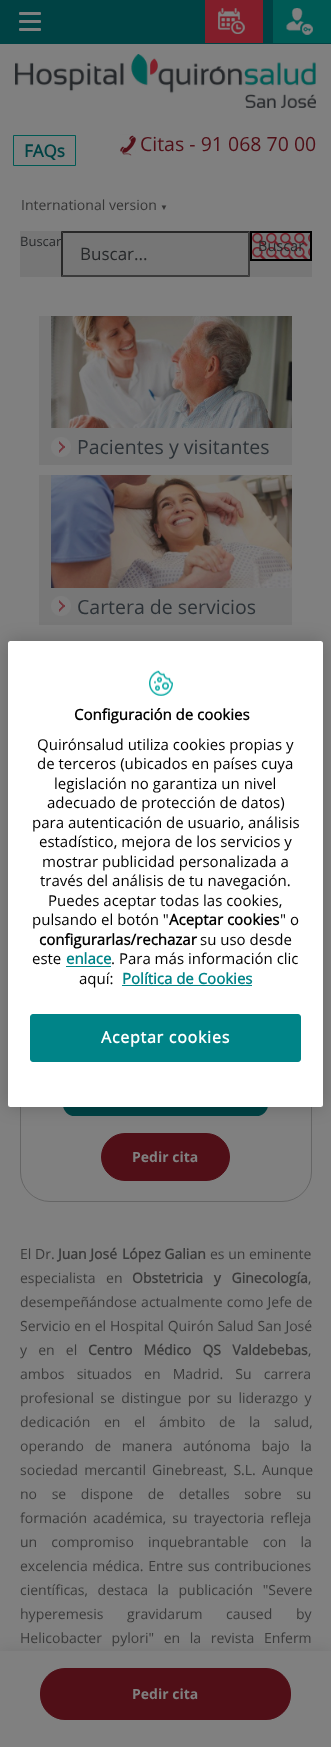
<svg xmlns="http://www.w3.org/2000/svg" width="331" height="1747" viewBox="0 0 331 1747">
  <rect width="100%" height="100%" fill="#808080"/>
  <path d="M0 0h331v44H0z" fill="#004244"/>
  <rect x="19" y="12" width="22" height="3" rx="1" fill="#808080"/>
  <rect x="19" y="20" width="22" height="3" rx="1" fill="#808080"/>
  <rect x="19" y="28" width="22" height="3" rx="1" fill="#808080"/>
  <path d="M205 0h58v43H205z" fill="#801e2a"/>
  <image x="218" y="8" width="27" height="26" href="img/1.png"/>
  <path d="M273 0h58v43H273z" fill="#005a55"/>
  <image x="286" y="8" width="27" height="27" href="img/2.png"/>
  <image x="15" y="54" width="301" height="54" href="img/3.png"/>
  <path d="M13.5 135.5h62v30H13.5z" fill="none" stroke="#005a55"/>
  <path d="M120 134h16v22H120z" fill="#500f17"/>
  <image x="120" y="134" width="16" height="24" href="img/4.png"/>
  <path d="M20 231h292v46H20z" fill="#767676"/>
  <path d="M61 231H250L248 233H63Z" fill="#282828"/>
  <path d="M250 231V277L248 275V233Z" fill="#3b3b3b"/>
  <path d="M250 277H61L63 275H248Z" fill="#3b3b3b"/>
  <path d="M61 277V231L63 233V275Z" fill="#282828"/>
  <image x="252" y="233" width="58" height="26" href="img/5.png"/>
  <path d="M251 232h60v28H251z" fill="none" stroke="#000" stroke-width="2"/>
  <path d="M39 316h253v149H39z" fill="#777"/>
  <image x="51" y="316" width="241" height="112" href="img/6.png"/>
  <image x="51" y="437" width="20" height="20" href="img/7.png"/>
  <path d="M39 475h253v150H39z" fill="#777"/>
  <image x="51" y="475" width="241" height="113" href="img/8.png"/>
  <image x="51" y="596" width="20" height="20" href="img/7.png"/>
  <rect x="20.5" y="959.5" width="291" height="242" rx="29.5" fill="none" stroke="#656565"/>
  <rect x="63" y="1093" width="205" height="23" rx="11.5" fill="#004244"/>
  <rect x="101.5" y="1133.5" width="128" height="47" rx="23.5" fill="#500f17" stroke="#500f17"/>
  <path d="M0 1651h331v96H0z" fill="#0000001a" filter="blur(7.5px)"/>
  <path d="M0 1651h331v96H0z" fill="#808080"/>
  <rect x="40.5" y="1668.5" width="250" height="51" rx="24.5" fill="#500f17" stroke="#500f17"/>
  <rect x="8" y="641" width="315" height="466" rx="2.5" fill="#00000033" filter="blur(9px)"/>
  <rect x="8" y="641" width="315" height="466" rx="2.5" fill="#fff"/>
  <image x="149" y="670" width="24" height="26" href="img/9.png"/>
  <path d="M66 966h45v1H66z" fill="#008488"/>
  <path d="M122 985h130v1H122z" fill="#008488"/>
  <rect x="30.5" y="1014.5" width="270" height="47" rx="2.5" fill="#008488" stroke="#008488"/>
  <text x="24" y="157" font-family="'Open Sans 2'" font-size="17" font-weight="bold" fill="#004244">FAQs</text>
  <text x="140" y="151" font-family="Open Sans" font-size="19.5" fill="#500f17">Citas - 91 068 70 00</text>
  <text x="21" y="210" font-family="Open Sans" font-size="14" fill="#343434">International version</text>
  <text x="160" y="210" font-family="Liberation Sans" font-size="8" fill="#343434">▼</text>
  <text x="20" y="246" font-family="Open Sans" font-size="13" fill="#26282a">Buscar</text>
  <text x="80" y="260" font-family="Open Sans" font-size="17" fill="#26282a">Buscar...</text>
  <text x="258" y="251" font-family="Open Sans" font-size="14.5" fill="#26282a">Buscar</text>
  <g font-family="Open Sans" font-size="19.5" fill="#2b3136">
    <text x="77" y="454">Pacientes y visitantes</text>
    <text x="77" y="614">Cartera de servicios</text>
  </g>
  <text x="132" y="1162" font-family="Open Sans" font-size="14" font-weight="bold" fill="#808080">Pedir cita</text>
  <text x="20" y="1259" font-family="Open Sans" font-size="14" fill="#3a3a3a">El Dr.</text>
  <g font-family="'Open Sans 2'" font-size="14" font-weight="bold" fill="#3a3a3a">
    <text x="58" y="1259">Juan José</text>
    <text x="122" y="1259">López Galian</text>
  </g>
  <g font-family="Open Sans" font-size="14" fill="#3a3a3a">
    <text x="210" y="1259">es un eminente</text>
    <text x="20" y="1283" word-spacing="7">especialista en</text>
  </g>
  <text x="132" y="1283" word-spacing="7" font-family="'Open Sans 2'" font-size="14" font-weight="bold" fill="#3a3a3a">Obstetricia y Ginecología</text>
  <g font-family="Open Sans" font-size="14" fill="#3a3a3a">
    <text x="308" y="1283">,</text>
    <text x="20" y="1307" word-spacing="0.5">desempeñándose actualmente como Jefe de</text>
    <text x="20" y="1331" word-spacing="0.25">Servicio en el Hospital Quirón Salud San José</text>
    <text x="20" y="1355" word-spacing="7.5">y en el</text>
  </g>
  <text x="88" y="1355" word-spacing="7.5" font-family="'Open Sans 2'" font-size="14" font-weight="bold" fill="#3a3a3a">Centro Médico QS Valdebebas</text>
  <g font-family="Open Sans" font-size="14" fill="#3a3a3a">
    <text x="308" y="1355">,</text>
    <text x="20" y="1379" word-spacing="8.5">ambos situados en Madrid. Su carrera</text>
    <text x="20" y="1403" word-spacing="2.75">profesional se distingue por su liderazgo y</text>
    <text x="20" y="1427" word-spacing="10">dedicación en el ámbito de la salud,</text>
    <text x="20" y="1451" word-spacing="7">operando de manera autónoma bajo la</text>
    <text x="20" y="1475" word-spacing="2.5">sociedad mercantil Ginebreast, S.L. Aunque</text>
    <text x="20" y="1499" word-spacing="11">no se dispone de detalles sobre su</text>
    <text x="20" y="1523" word-spacing="2.5">formación académica, su trayectoria refleja</text>
    <text x="20" y="1547" word-spacing="10.5">un compromiso inquebrantable con la</text>
    <text x="20" y="1571" word-spacing="1">excelencia médica. Entre sus contribuciones</text>
    <text x="20" y="1595" word-spacing="6">científicas, destaca la publicación "Severe</text>
    <text x="20" y="1619" word-spacing="20">hyperemesis gravidarum caused by</text>
    <text x="20" y="1643" word-spacing="6">Helicobacter pylori" en la revista Enferm</text>
  </g>
  <text x="132" y="1699" font-family="Open Sans" font-size="14" font-weight="bold" fill="#808080">Pedir cita</text>
  <text x="74" y="720" font-family="'Open Sans 2'" font-size="15" font-weight="bold" fill="#000">Configuración de cookies</text>
  <g font-family="Open Sans" font-size="15" fill="#000">
    <text x="37" y="750">Quirónsalud utiliza cookies propias y</text>
    <text x="37" y="769">de terceros (ubicados en países cuya</text>
    <text x="54" y="789">legislación no garantiza un nivel</text>
    <text x="47" y="808">adecuado de protección de datos)</text>
    <text x="32" y="828">para autenticación de usuario, análisis</text>
    <text x="39" y="847">estadístico, mejora de los servicios y</text>
    <text x="42" y="867">mostrar publicidad personalizada a</text>
    <text x="40" y="886">través del análisis de tu navegación.</text>
    <text x="48" y="906">Puedes aceptar todas las cookies,</text>
    <text x="32" y="925">pulsando el botón "</text>
  </g>
  <text x="169" y="925" font-family="'Open Sans 2'" font-size="15" font-weight="bold" fill="#000">Aceptar cookies</text>
  <text x="280" y="925" font-family="Open Sans" font-size="15" fill="#000">" o</text>
  <text x="39" y="945" font-family="'Open Sans 2'" font-size="15" font-weight="bold" fill="#000">configurarlas/rechazar</text>
  <g font-family="Open Sans" font-size="15" fill="#000">
    <text x="200" y="945">su uso desde</text>
    <text x="32" y="964">este</text>
  </g>
  <text x="66" y="964" font-family="'Open Sans 2'" font-size="15" font-weight="bold" fill="#008488">enlace</text>
  <g font-family="Open Sans" font-size="15" fill="#000">
    <text x="111" y="964">. Para más información clic</text>
    <text x="79" y="984">aquí:</text>
  </g>
  <text x="122" y="984" font-family="'Open Sans 2'" font-size="15" font-weight="bold" fill="#008488">Política de Cookies</text>
  <text x="101" y="1043" font-family="'Open Sans 2'" font-size="16" font-weight="bold" letter-spacing="0.75" fill="#fff">Aceptar cookies</text>
</svg>
